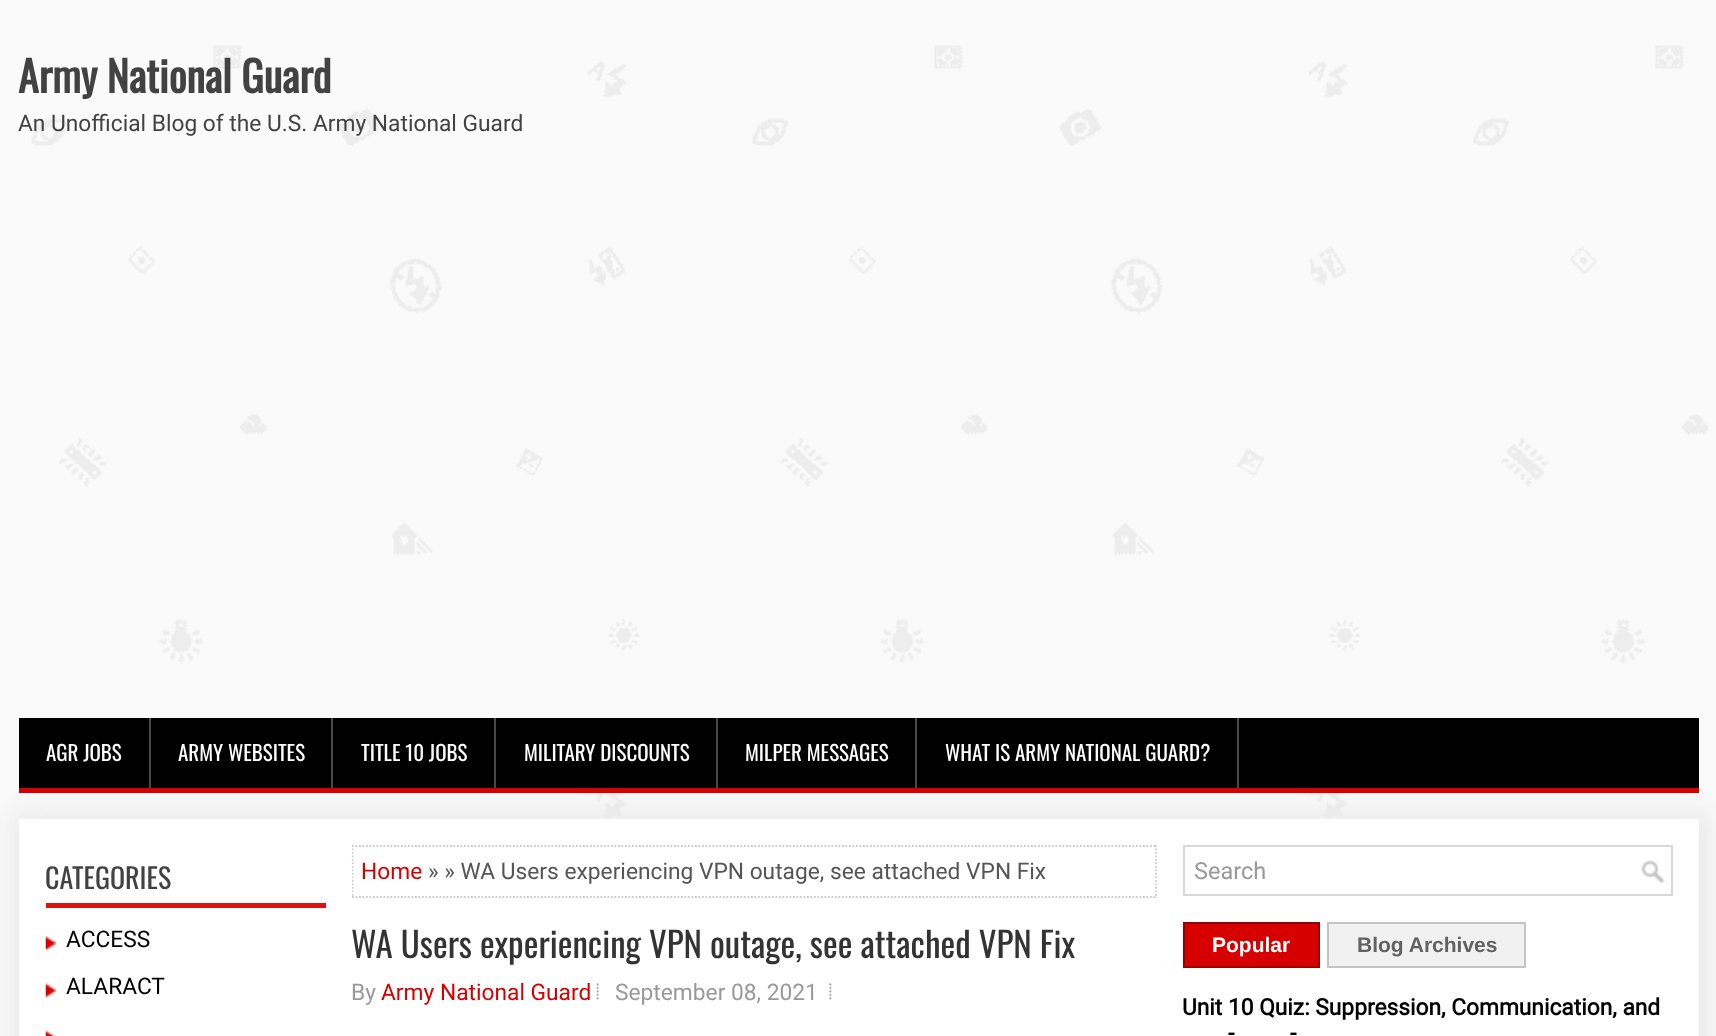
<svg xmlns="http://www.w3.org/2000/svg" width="1716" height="1036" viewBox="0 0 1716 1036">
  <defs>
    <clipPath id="clip1"><path d="M352 845h805v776H352z"/></clipPath>
  </defs>
  <rect width="100%" height="100%" fill="#fff"/>
  <image x="0" y="0" width="1716" height="1036" href="img/1.png"/>
  <path d="M12 812h1698v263H12z" fill="#e9e9e9" filter="blur(13px)"/>
  <path d="M19 718h1680v70H19z" fill="#000"/>
  <path d="M19 788h1680v5H19z" fill="#d20001"/>
  <path d="M149 718h2v70H149z" fill="#484848"/>
  <path d="M331 718h2v70H331z" fill="#484848"/>
  <path d="M494 718h2v70H494z" fill="#484848"/>
  <path d="M716 718h2v70H716z" fill="#484848"/>
  <path d="M915 718h2v70H915z" fill="#484848"/>
  <path d="M1237 718h2v70H1237z" fill="#484848"/>
  <path d="M19 819h1680v217H19z" fill="#fff"/>
  <path d="M46 903h280v5H46z" fill="#da1212"/>
  <image x="45" y="936" width="11" height="15" href="img/2.png"/>
  <image x="45" y="983" width="11" height="15" href="img/3.png"/>
  <image x="45" y="1030" width="11" height="6" href="img/4.png"/>
  <path d="M352 846H1157" fill="none" stroke="#ccc" stroke-width="1.8" stroke-dasharray="1.75 1.75"/>
  <path d="M1156 845V898" fill="none" stroke="#ccc" stroke-width="1.8" stroke-dasharray="1.75 1.75"/>
  <path d="M352 897H1157" fill="none" stroke="#ccc" stroke-width="1.8" stroke-dasharray="1.75 1.75"/>
  <g clip-path="url(#clip1)">
    <path d="M352.5 845V898" fill="none" stroke="#ccc" stroke-width="1.8" stroke-dasharray="1.75 1.75"/>
  </g>
  <image x="596" y="983" width="3" height="17" href="img/5.png"/>
  <image x="829" y="983" width="3" height="17" href="img/6.png"/>
  <image x="1641" y="860" width="24" height="24" href="img/7.png"/>
  <path d="M1184 846h488v49H1184z" fill="none" stroke="#d8d8d8" stroke-width="2"/>
  <path d="M1184 923h135v44H1184z" fill="#d70000" stroke="#960202" stroke-width="2"/>
  <path d="M1328 923h197v44H1328z" fill="#f1f1f1" stroke="#c4c4c4" stroke-width="2"/>
  <text x="18" y="93" font-family="Oswald" font-size="42" font-weight="bold" fill="#424242">Army National Guard</text>
  <text x="18" y="131" font-family="Roboto" font-size="22.75" fill="#424242">An Unofficial Blog of the U.S. Army National Guard</text>
  <g font-family="Oswald" font-size="21" fill="#fff">
    <text x="46" y="761">AGR JOBS</text>
    <text x="178" y="761">ARMY WEBSITES</text>
    <text x="361" y="761">TITLE 10 JOBS</text>
    <text x="524" y="761">MILITARY DISCOUNTS</text>
    <text x="745" y="761">MILPER MESSAGES</text>
    <text x="945" y="761">WHAT IS ARMY NATIONAL GUARD?</text>
  </g>
  <text x="45" y="889" font-family="Oswald" font-size="28" fill="#424242">CATEGORIES</text>
  <g font-family="Roboto" font-size="22.75" fill="#000">
    <text x="66" y="947">ACCESS</text>
    <text x="66" y="994">ALARACT</text>
  </g>
  <text x="361" y="879" font-family="Roboto" font-size="22.75" fill="#d70000">Home</text>
  <text x="428" y="879" font-family="Roboto" font-size="22.75" fill="#555">» » WA Users experiencing VPN outage, see attached VPN Fix</text>
  <text x="351" y="958" font-family="Oswald" font-size="35" fill="#333">WA Users experiencing VPN outage, see attached VPN Fix</text>
  <text x="351" y="1000" font-family="Roboto" font-size="22.75" fill="#999">By</text>
  <text x="381" y="1000" font-family="Roboto" font-size="22.75" fill="#d70000">Army National Guard</text>
  <text x="615" y="1000" font-family="Roboto" font-size="22.75" fill="#999">September 08, 2021</text>
  <text x="1194" y="879" font-family="Roboto" font-size="23.5" fill="#999">Search</text>
  <text x="1212" y="952" font-family="Liberation Sans" font-size="21" font-weight="bold" fill="#fff">Popular</text>
  <text x="1357" y="952" font-family="Liberation Sans" font-size="21" font-weight="bold" fill="#626262">Blog Archives</text>
  <g font-family="Roboto" font-size="22.75" font-weight="bold" fill="#000">
    <text x="1182" y="1015">Unit 10 Quiz: Suppression, Communication, and</text>
    <text x="1228" y="1041">-</text>
    <text x="1290" y="1041">-</text>
  </g>
</svg>
